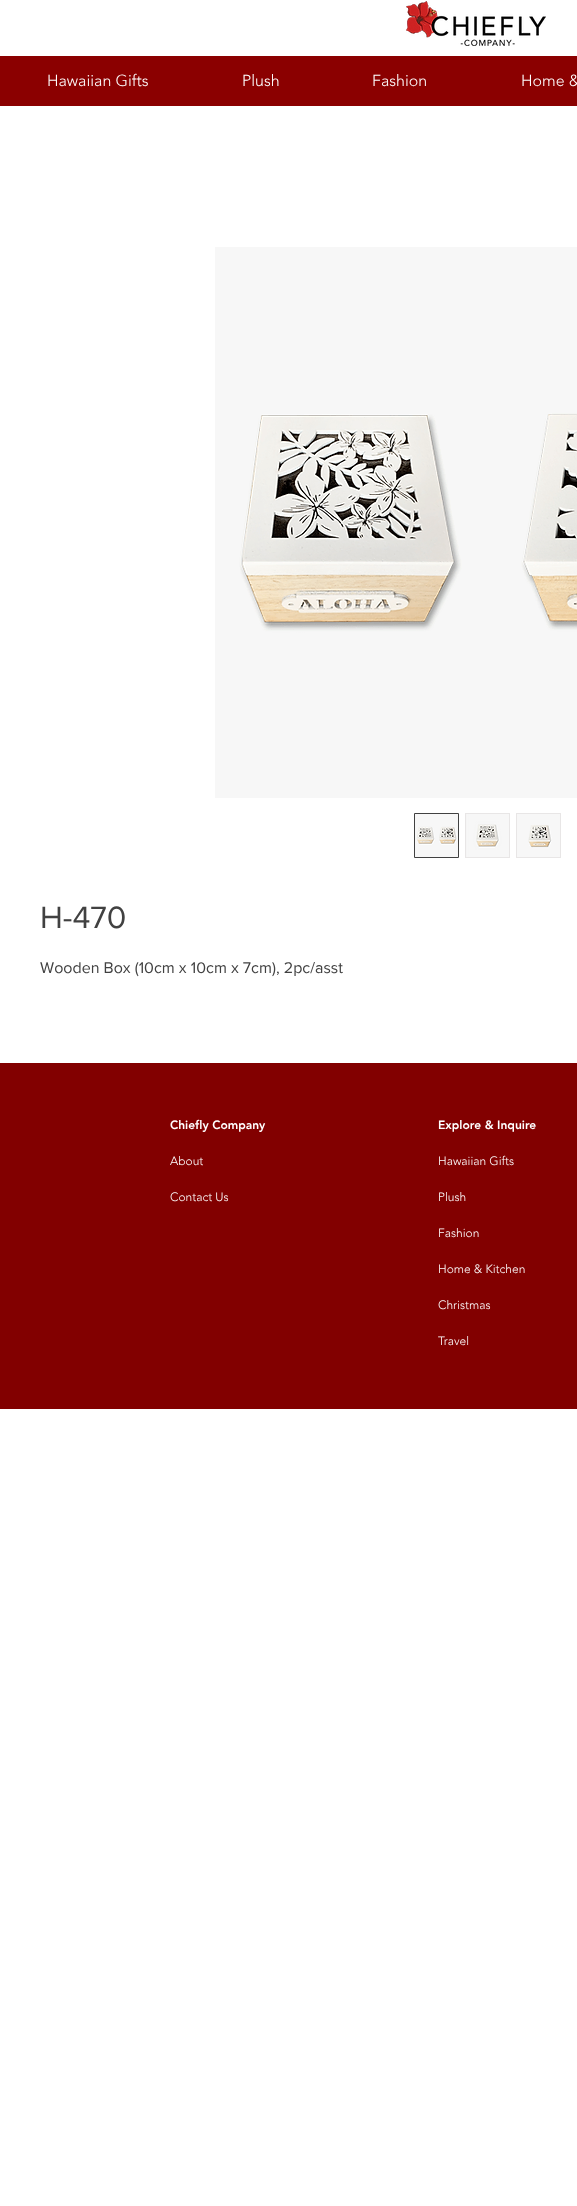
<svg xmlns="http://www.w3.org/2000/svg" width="577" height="2206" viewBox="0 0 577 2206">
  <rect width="100%" height="100%" fill="#fff"/>
  <image x="406" y="1" width="140" height="45" href="img/1.png"/>
  <path d="M0 56h577v50H0z" fill="#8b0000"/>
  <image x="215" y="247" width="362" height="551" href="img/2.png"/>
  <path d="M414.5 813.5h44v44H414.5z" fill="none" stroke="#414141"/>
  <image x="415" y="814" width="43" height="43" href="img/3.png"/>
  <path d="M465 813h45v45H465z" fill="#e8e6e6"/>
  <image x="466" y="814" width="43" height="43" href="img/4.png"/>
  <path d="M516 813h45v45H516z" fill="#e8e6e6"/>
  <image x="517" y="814" width="43" height="43" href="img/5.png"/>
  <path d="M0 1063h577v346H0z" fill="#820000"/>
  <g font-family="'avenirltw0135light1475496'" font-size="16" font-weight="300" fill="#fff">
    <text x="47" y="86">Hawaiian Gifts</text>
    <text x="242" y="86">Plush</text>
    <text x="372" y="86">Fashion</text>
    <text x="521" y="86">Home &amp;</text>
  </g>
  <text x="40" y="928" font-family="'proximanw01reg'" font-size="32" fill="#414141">H-470</text>
  <text x="40" y="973" font-family="'proximanw01reg'" font-size="16" fill="#414141">Wooden Box (10cm x 10cm x 7cm), 2pc/asst</text>
  <text x="170" y="1129" font-family="'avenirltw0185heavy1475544'" font-size="12" font-weight="900" fill="#fff">Chiefly Company</text>
  <g font-family="'avenirltw0135light1475496'" font-size="12" font-weight="300" fill="#fff">
    <text x="170" y="1165">About</text>
    <text x="170" y="1201">Contact Us</text>
  </g>
  <text x="438" y="1129" font-family="'avenirltw0185heavy1475544'" font-size="12" font-weight="900" fill="#fff">Explore &amp; Inquire</text>
  <g font-family="'avenirltw0135light1475496'" font-size="12" font-weight="300" fill="#fff">
    <text x="438" y="1165">Hawaiian Gifts</text>
    <text x="438" y="1201">Plush</text>
    <text x="438" y="1237">Fashion</text>
    <text x="438" y="1273">Home &amp; Kitchen</text>
    <text x="438" y="1309">Christmas</text>
    <text x="438" y="1345">Travel</text>
  </g>
</svg>
